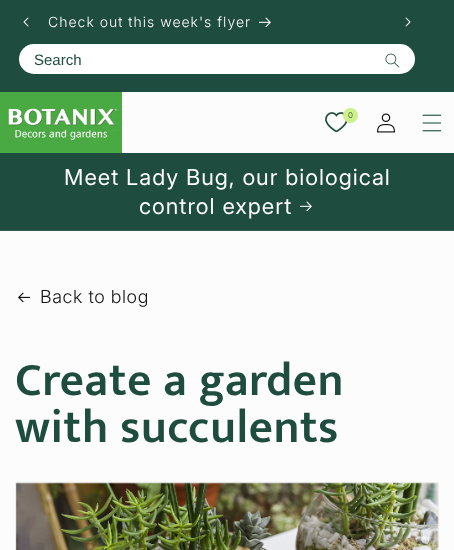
<svg xmlns="http://www.w3.org/2000/svg" width="454" height="550" viewBox="0 0 454 550">
  <rect width="100%" height="100%" fill="#fdfcfc"/>
  <path d="M0 0h454v92H0z" fill="#1e4c3f"/>
  <image x="23" y="17" width="6" height="10" href="img/1.png"/>
  <image x="259" y="17" width="12" height="10" href="img/2.png"/>
  <image x="405" y="17" width="6" height="10" href="img/3.png"/>
  <rect x="19" y="44" width="396" height="30" rx="15" fill="#fff"/>
  <image x="385" y="53" width="15" height="15" href="img/4.png"/>
  <image x="0" y="92" width="122" height="61" href="img/5.png"/>
  <image x="325" y="112" width="23" height="21" href="img/6.png"/>
  <circle cx="350.5" cy="115.5" r="7.5" fill="#cef08b"/>
  <image x="377" y="113" width="18" height="20" href="img/7.png"/>
  <image x="422" y="114" width="20" height="18" href="img/8.png"/>
  <path d="M0 153h454v77H0z" fill="#1e4c3f"/>
  <path d="M0 230h454v1H0z" fill="#305a4e"/>
  <image x="300" y="201" width="12" height="11" href="img/9.png"/>
  <image x="18" y="292" width="12" height="11" href="img/10.png"/>
  <path d="M15.5 482.5h423v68H15.5z" fill="none" stroke="#f2f3f3"/>
  <image x="15" y="482" width="424" height="68" href="img/11.png"/>
  <text x="48" y="27" font-family="'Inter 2'" font-size="14" font-weight="300" letter-spacing="1" fill="#fdfcfc">Check out this week's flyer</text>
  <text x="34" y="65" font-family="Liberation Sans" font-size="15" fill="#1e4c3f">Search</text>
  <text x="348" y="118" font-family="'Inter 2'" font-size="8" font-weight="300" letter-spacing="0.6" fill="#173a30">0</text>
  <g font-family="Inter" font-size="22" letter-spacing="1" fill="#fdfcfc">
    <text x="64" y="185">Meet Lady Bug, our biological</text>
    <text x="139" y="214">control expert</text>
  </g>
  <text x="40" y="303" font-family="Inter" font-size="18" font-weight="300" letter-spacing="0.6" fill="#121212">Back to blog</text>
  <g font-family="Mukta" font-size="47" font-weight="600" letter-spacing="0.6" fill="#1e4c3f">
    <text x="15" y="395">Create a garden</text>
    <text x="15" y="442">with succulents</text>
  </g>
</svg>
